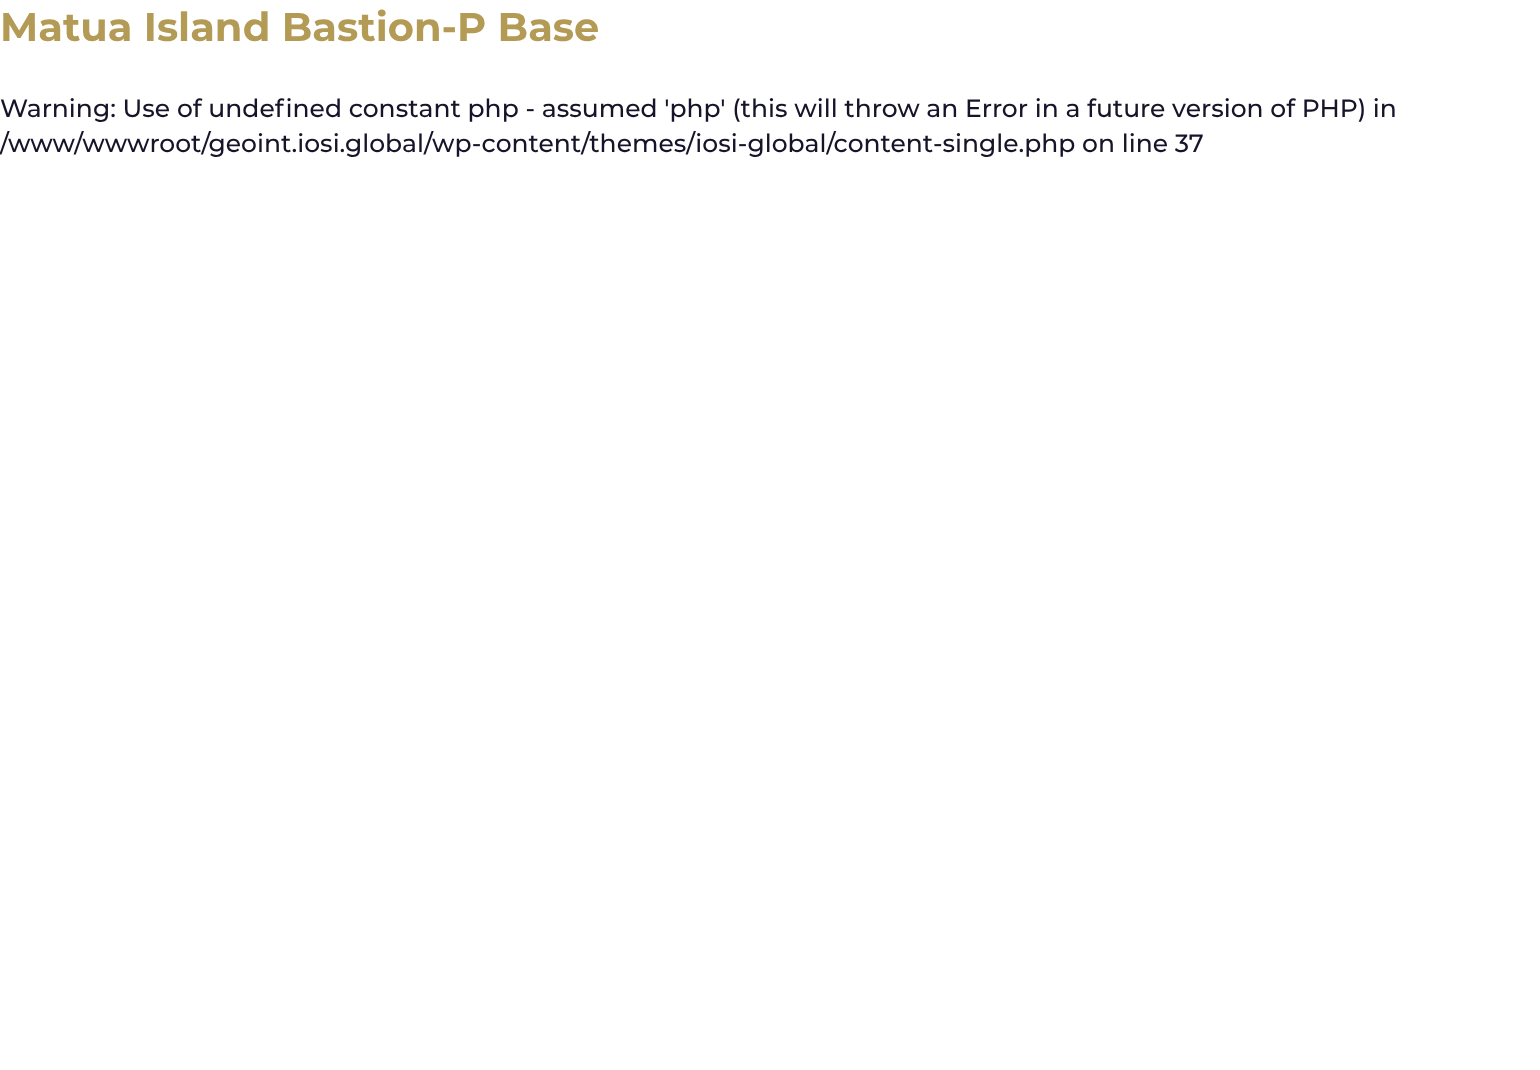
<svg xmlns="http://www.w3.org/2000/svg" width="1540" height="1070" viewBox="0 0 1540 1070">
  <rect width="100%" height="100%" fill="#fff"/>
  <text x="0" y="41" font-family="Montserrat" font-size="40" font-weight="bold" fill="#b39a55">Matua Island Bastion-P Base</text>
  <g font-family="Montserrat" font-size="25" font-weight="500" fill="#161428">
    <text x="0" y="117">Warning: Use of undefined constant php - assumed 'php' (this will throw an Error in a future version of PHP) in</text>
    <text x="0" y="152">/www/wwwroot/geoint.iosi.global/wp-content/themes/iosi-global/content-single.php on line 37</text>
  </g>
</svg>
